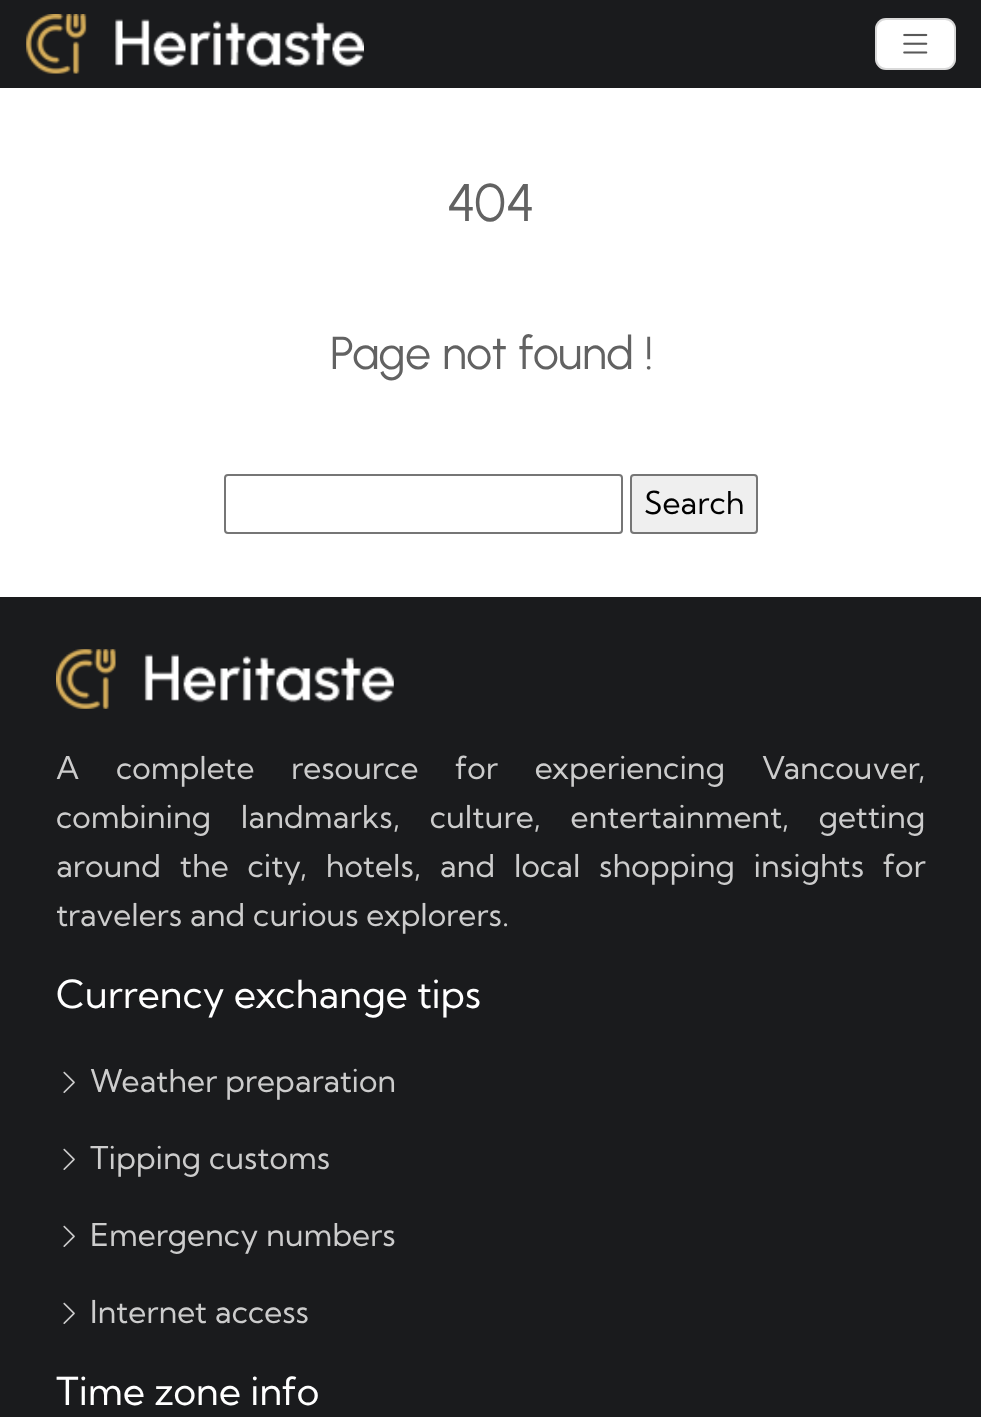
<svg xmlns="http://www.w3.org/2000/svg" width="981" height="1417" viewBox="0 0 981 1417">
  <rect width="100%" height="100%" fill="#fff"/>
  <path d="M0 0h981v88H0z" fill="#1a1b1d"/>
  <image x="26" y="14" width="338" height="60" href="img/1.png"/>
  <rect x="875" y="18" width="81" height="52" rx="11" fill="#fff"/>
  <rect x="876" y="19" width="79" height="50" rx="10" fill="none" stroke="#00000026" stroke-width="2"/>
  <image x="903" y="33" width="25" height="21" href="img/2.png"/>
  <rect x="225" y="475" width="397" height="58" rx="3" fill="none" stroke="#767676" stroke-width="2"/>
  <rect x="631" y="475" width="126" height="58" rx="3" fill="#efefef" stroke="#767676" stroke-width="2"/>
  <path d="M0 597h981v820H0z" fill="#1a1b1d"/>
  <image x="56" y="649" width="338" height="60" href="img/3.png"/>
  <image x="63" y="1071" width="12" height="22" href="img/4.png"/>
  <image x="63" y="1148" width="12" height="22" href="img/4.png"/>
  <image x="63" y="1225" width="12" height="22" href="img/4.png"/>
  <image x="63" y="1302" width="12" height="22" href="img/4.png"/>
  <text x="447" y="221" font-family="Urbanist" font-size="53" fill="#626262">404</text>
  <text x="330" y="369" font-family="Urbanist" font-size="46" fill="#626262">Page not found !</text>
  <text x="644" y="514" font-family="Kumbh Sans" font-size="31.5" fill="#000">Search</text>
  <g font-family="Kumbh Sans" font-size="31.5" fill="#ccc">
    <text x="56" y="779" word-spacing="29">A complete resource for experiencing Vancouver,</text>
    <text x="56" y="828" word-spacing="22">combining landmarks, culture, entertainment, getting</text>
    <text x="56" y="877" word-spacing="11">around the city, hotels, and local shopping insights for</text>
    <text x="56" y="926">travelers and curious explorers.</text>
  </g>
  <text x="56" y="1008" font-family="Kumbh Sans" font-size="38.5" fill="#fff">Currency exchange tips</text>
  <g font-family="Kumbh Sans" font-size="31.5" fill="#ccc">
    <text x="90" y="1092">Weather preparation</text>
    <text x="90" y="1169">Tipping customs</text>
    <text x="90" y="1246">Emergency numbers</text>
    <text x="90" y="1323">Internet access</text>
  </g>
  <text x="56" y="1405" font-family="Kumbh Sans" font-size="38.5" fill="#fff">Time zone info</text>
</svg>
